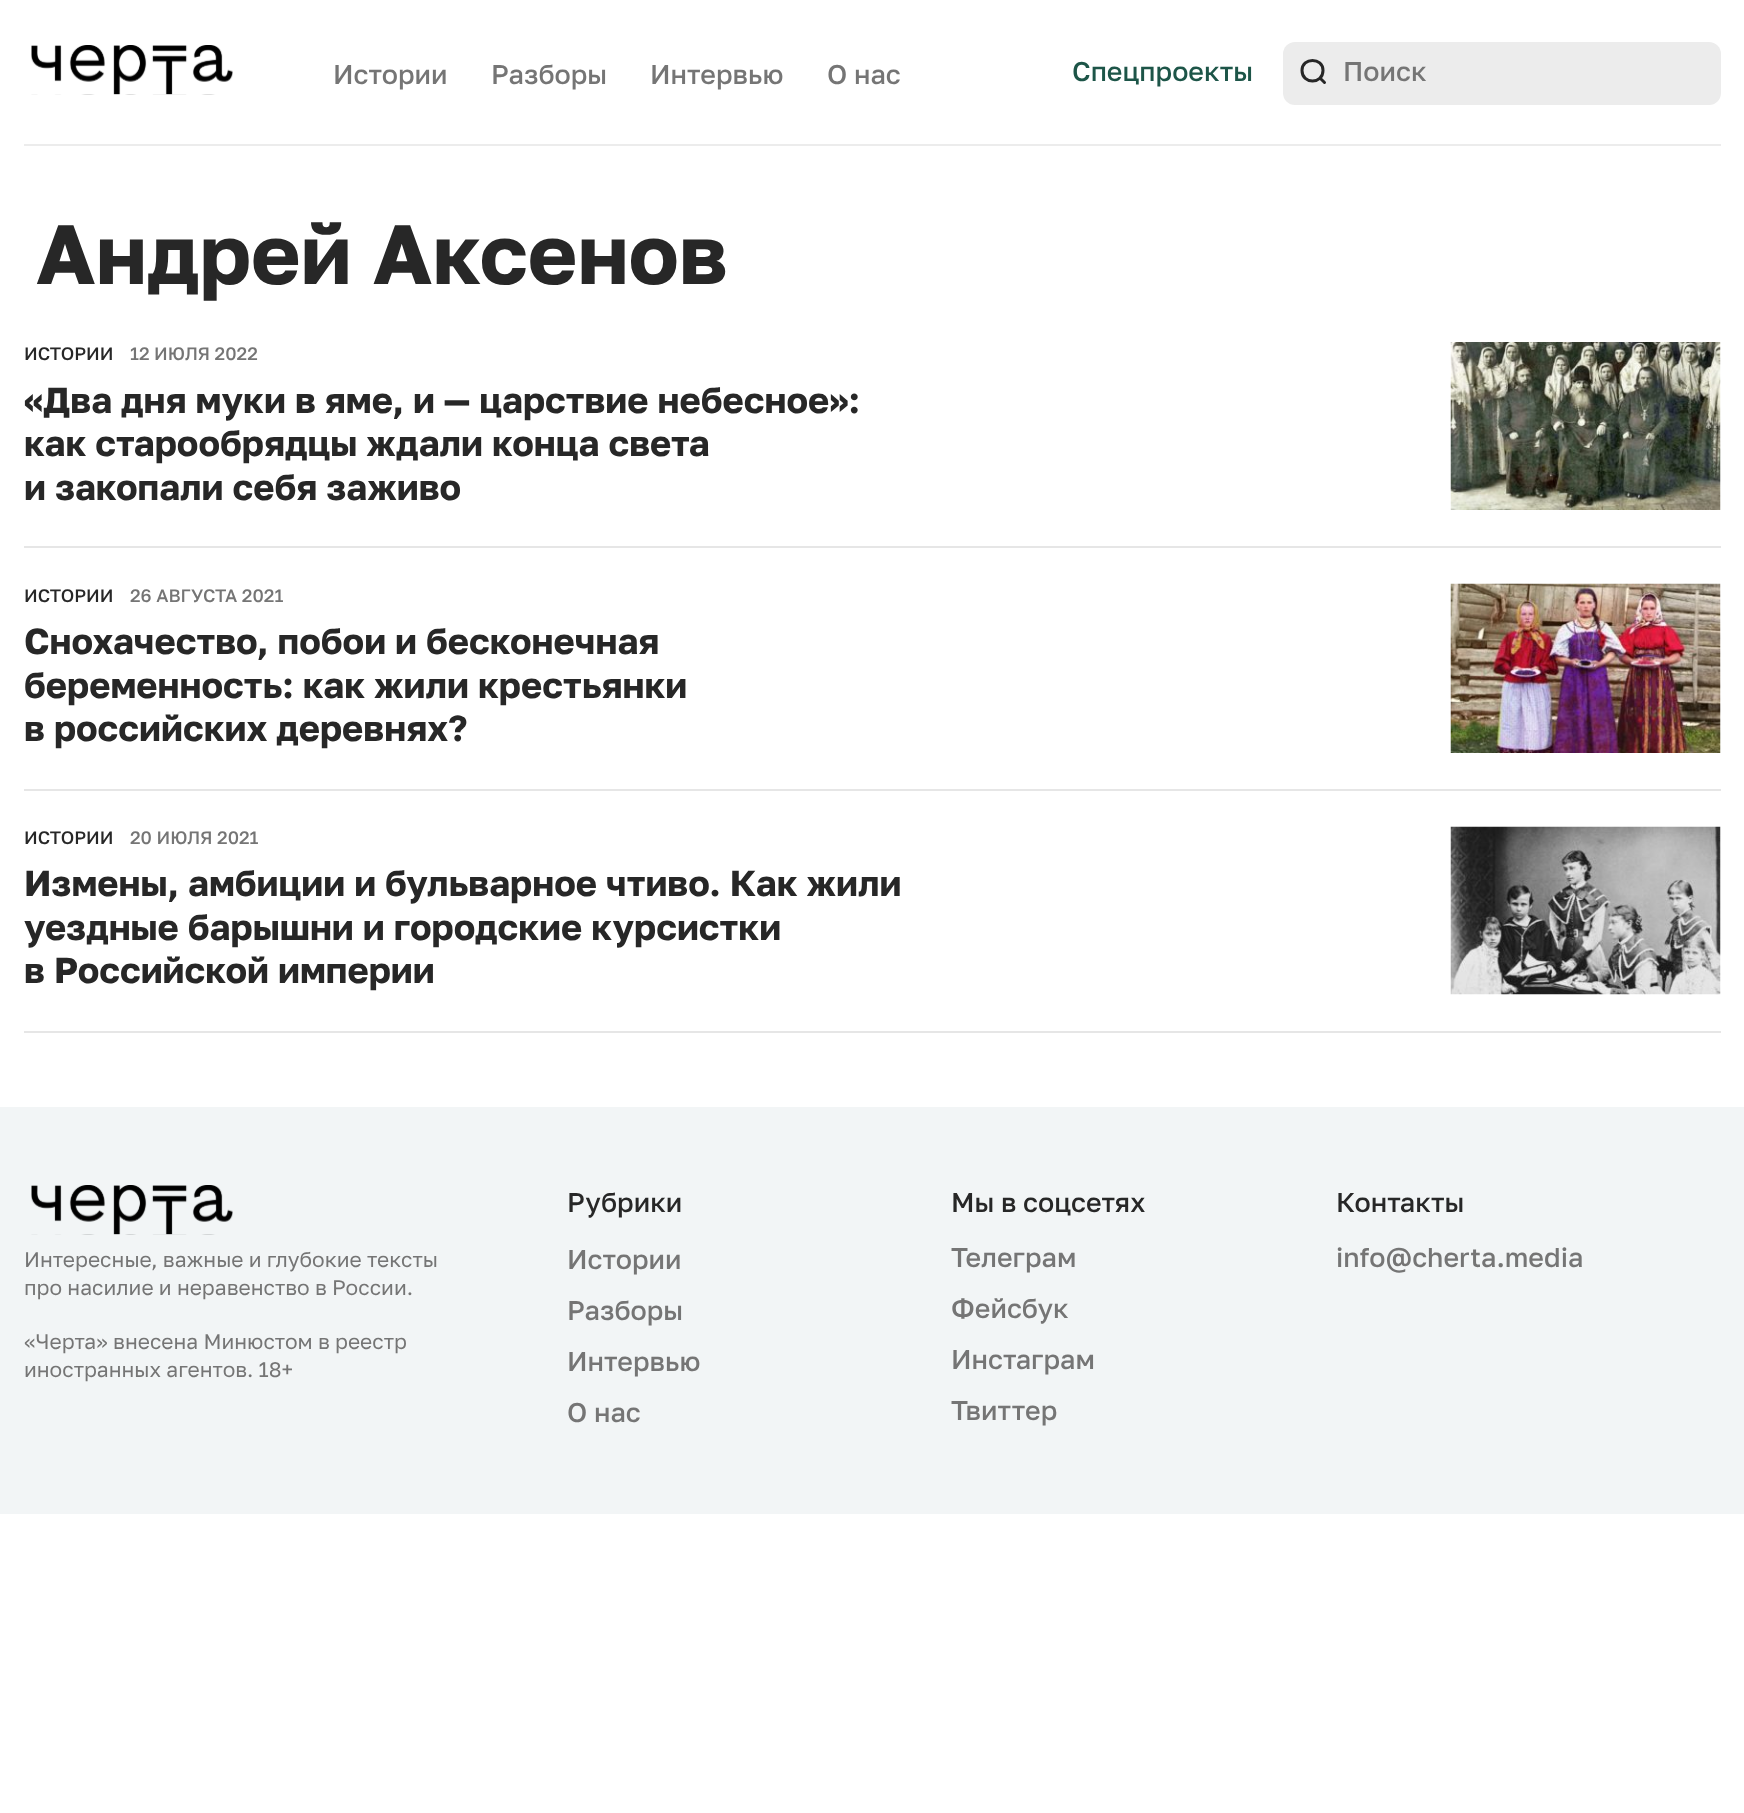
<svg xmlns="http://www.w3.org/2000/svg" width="1744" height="1813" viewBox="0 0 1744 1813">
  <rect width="100%" height="100%" fill="#fff"/>
  <image x="31" y="45" width="202" height="50" href="img/1.png"/>
  <rect x="1283" y="42" width="438" height="63" rx="12" fill="#ececec"/>
  <path d="M1320 78L1324.5 82.5M1323 70.5C1323 84.5 1302 84.5 1302 70.5C1302 57 1323 57 1323 70.5Z" fill="none" stroke="#272727" stroke-width="3" stroke-linecap="round" stroke-linejoin="round"/>
  <path d="M24 144h1697v2H24z" fill="#ececec"/>
  <path d="M24 546h1697v2H24z" fill="#e6e6e6"/>
  <image x="1450" y="342" width="271" height="168" href="img/2.png"/>
  <path d="M24 789h1697v2H24z" fill="#e6e6e6"/>
  <image x="1450" y="583" width="271" height="170" href="img/3.png"/>
  <path d="M24 1031h1697v2H24z" fill="#e6e6e6"/>
  <image x="1450" y="826" width="271" height="169" href="img/4.png"/>
  <path d="M0 1107h1744v407H0z" fill="#f2f5f6"/>
  <image x="31" y="1185" width="202" height="50" href="img/5.png"/>
  <g font-family="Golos" font-size="27" font-weight="500" fill="#757575">
    <text x="333" y="84">Истории</text>
    <text x="491" y="84">Разборы</text>
    <text x="650" y="84">Интервью</text>
    <text x="827" y="84">О нас</text>
  </g>
  <text x="1072" y="81" font-family="Golos" font-size="27" font-weight="500" fill="#1d5548">Спецпроекты</text>
  <text x="1343" y="81" font-family="Golos" font-size="27" font-weight="500" fill="#757575">Поиск</text>
  <text x="36" y="284" font-family="Golos" font-size="84" font-weight="bold" fill="#272727">Андрей Аксенов</text>
  <text x="24" y="360" font-family="Golos" font-size="18" font-weight="500" fill="#272727">ИСТОРИИ</text>
  <text x="130" y="360" font-family="Golos" font-size="18" font-weight="500" fill="#757575">12 ИЮЛЯ 2022</text>
  <g font-family="Golos" font-size="36" font-weight="bold" fill="#272727">
    <text x="24" y="413">«Два дня муки в яме, и — царствие небесное»:</text>
    <text x="24" y="456">как старообрядцы ждали конца света</text>
    <text x="24" y="500">и закопали себя заживо</text>
  </g>
  <text x="24" y="602" font-family="Golos" font-size="18" font-weight="500" fill="#272727">ИСТОРИИ</text>
  <text x="130" y="602" font-family="Golos" font-size="18" font-weight="500" fill="#757575">26 АВГУСТА 2021</text>
  <g font-family="Golos" font-size="36" font-weight="bold" fill="#272727">
    <text x="24" y="654">Снохачество, побои и бесконечная</text>
    <text x="24" y="698">беременность: как жили крестьянки</text>
    <text x="24" y="741">в российских деревнях?</text>
  </g>
  <text x="24" y="844" font-family="Golos" font-size="18" font-weight="500" fill="#272727">ИСТОРИИ</text>
  <text x="130" y="844" font-family="Golos" font-size="18" font-weight="500" fill="#757575">20 ИЮЛЯ 2021</text>
  <g font-family="Golos" font-size="36" font-weight="bold" fill="#272727">
    <text x="24" y="896">Измены, амбиции и бульварное чтиво. Как жили</text>
    <text x="24" y="940">уездные барышни и городские курсистки</text>
    <text x="24" y="983">в Российской империи</text>
  </g>
  <text x="567" y="1212" font-family="Golos" font-size="27" font-weight="500" fill="#272727">Рубрики</text>
  <g font-family="Golos" font-size="27" font-weight="500" fill="#757575">
    <text x="567" y="1269">Истории</text>
    <text x="567" y="1320">Разборы</text>
    <text x="567" y="1371">Интервью</text>
    <text x="567" y="1422">О нас</text>
  </g>
  <text x="951" y="1212" font-family="Golos" font-size="27" font-weight="500" fill="#272727">Мы в соцсетях</text>
  <g font-family="Golos" font-size="27" font-weight="500" fill="#757575">
    <text x="951" y="1267">Телеграм</text>
    <text x="951" y="1318">Фейсбук</text>
    <text x="951" y="1369">Инстаграм</text>
    <text x="951" y="1420">Твиттер</text>
  </g>
  <text x="1336" y="1212" font-family="Golos" font-size="27" font-weight="500" fill="#272727">Контакты</text>
  <text x="1336" y="1267" font-family="Golos" font-size="27" font-weight="500" fill="#757575">info@cherta.media</text>
  <g font-family="Golos" font-size="21" fill="#757575">
    <text x="24" y="1267">Интересные, важные и глубокие тексты</text>
    <text x="24" y="1295">про насилие и неравенство в России.</text>
    <text x="24" y="1349">«Черта» внесена Минюстом в реестр</text>
    <text x="24" y="1377">иностранных агентов. 18+</text>
  </g>
</svg>
